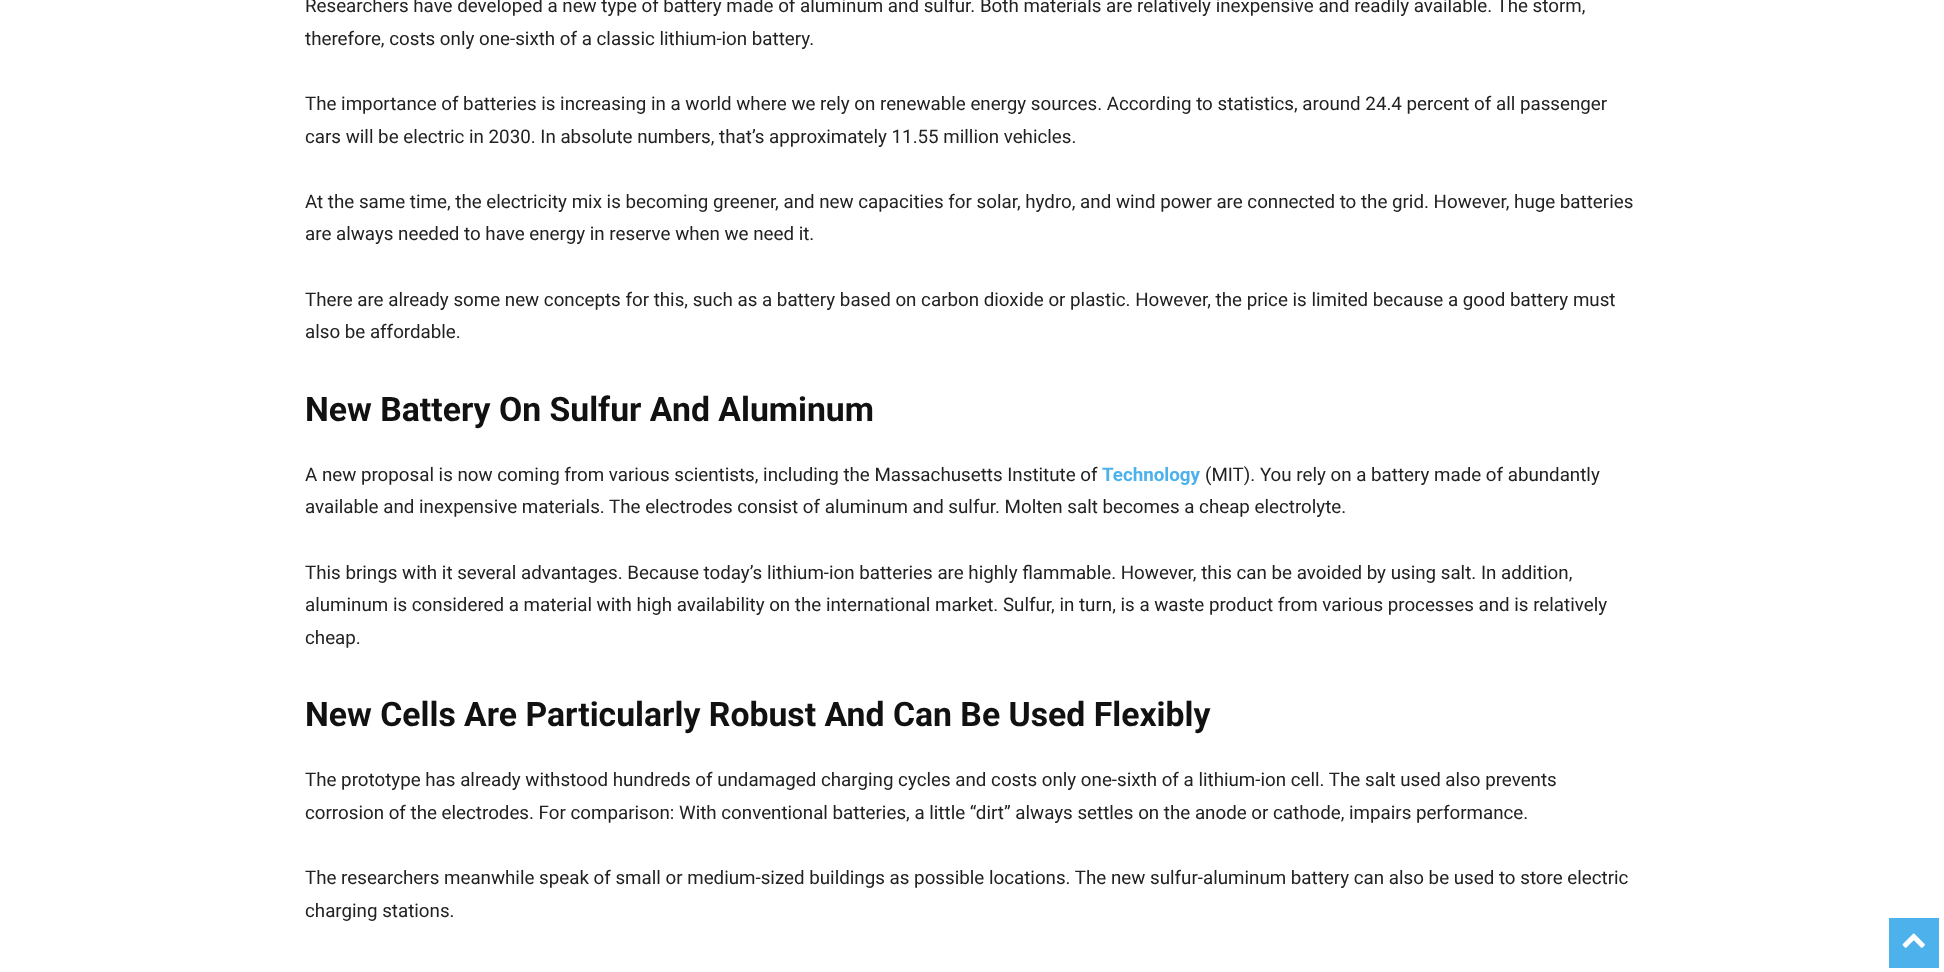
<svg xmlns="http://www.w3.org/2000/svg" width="1944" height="972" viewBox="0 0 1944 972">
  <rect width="100%" height="100%" fill="#fff"/>
  <path d="M1889 918h50v50H1889z" fill="#4db2ec"/>
  <image x="1902" y="933" width="23" height="15" href="img/1.png"/>
  <g font-family="Roboto" font-size="18.75" fill="#222">
    <text x="305" y="12">Researchers have developed a new type of battery made of aluminum and sulfur. Both materials are relatively inexpensive and readily available. The storm,</text>
    <text x="305" y="45">therefore, costs only one-sixth of a classic lithium-ion battery.</text>
    <text x="305" y="110">The importance of batteries is increasing in a world where we rely on renewable energy sources. According to statistics, around 24.4 percent of all passenger</text>
    <text x="305" y="143">cars will be electric in 2030. In absolute numbers, that’s approximately 11.55 million vehicles.</text>
    <text x="305" y="208">At the same time, the electricity mix is becoming greener, and new capacities for solar, hydro, and wind power are connected to the grid. However, huge batteries</text>
    <text x="305" y="240">are always needed to have energy in reserve when we need it.</text>
    <text x="305" y="306">There are already some new concepts for this, such as a battery based on carbon dioxide or plastic. However, the price is limited because a good battery must</text>
    <text x="305" y="338">also be affordable.</text>
  </g>
  <text x="305" y="421" font-family="Roboto" font-size="33.75" font-weight="bold" fill="#111">New Battery On Sulfur And Aluminum</text>
  <text x="305" y="481" font-family="Roboto" font-size="18.75" fill="#222">A new proposal is now coming from various scientists, including the Massachusetts Institute of</text>
  <text x="1102" y="481" font-family="Roboto" font-size="18.75" font-weight="bold" fill="#4db2ec">Technology</text>
  <g font-family="Roboto" font-size="18.75" fill="#222">
    <text x="1205" y="481">(MIT). You rely on a battery made of abundantly</text>
    <text x="305" y="513">available and inexpensive materials. The electrodes consist of aluminum and sulfur. Molten salt becomes a cheap electrolyte.</text>
    <text x="305" y="579">This brings with it several advantages. Because today’s lithium-ion batteries are highly flammable. However, this can be avoided by using salt. In addition,</text>
    <text x="305" y="611">aluminum is considered a material with high availability on the international market. Sulfur, in turn, is a waste product from various processes and is relatively</text>
    <text x="305" y="644">cheap.</text>
  </g>
  <text x="305" y="726" font-family="Roboto" font-size="33.75" font-weight="bold" fill="#111">New Cells Are Particularly Robust And Can Be Used Flexibly</text>
  <g font-family="Roboto" font-size="18.75" fill="#222">
    <text x="305" y="786">The prototype has already withstood hundreds of undamaged charging cycles and costs only one-sixth of a lithium-ion cell. The salt used also prevents</text>
    <text x="305" y="819">corrosion of the electrodes. For comparison: With conventional batteries, a little “dirt” always settles on the anode or cathode, impairs performance.</text>
    <text x="305" y="884">The researchers meanwhile speak of small or medium-sized buildings as possible locations. The new sulfur-aluminum battery can also be used to store electric</text>
    <text x="305" y="917">charging stations.</text>
  </g>
</svg>
